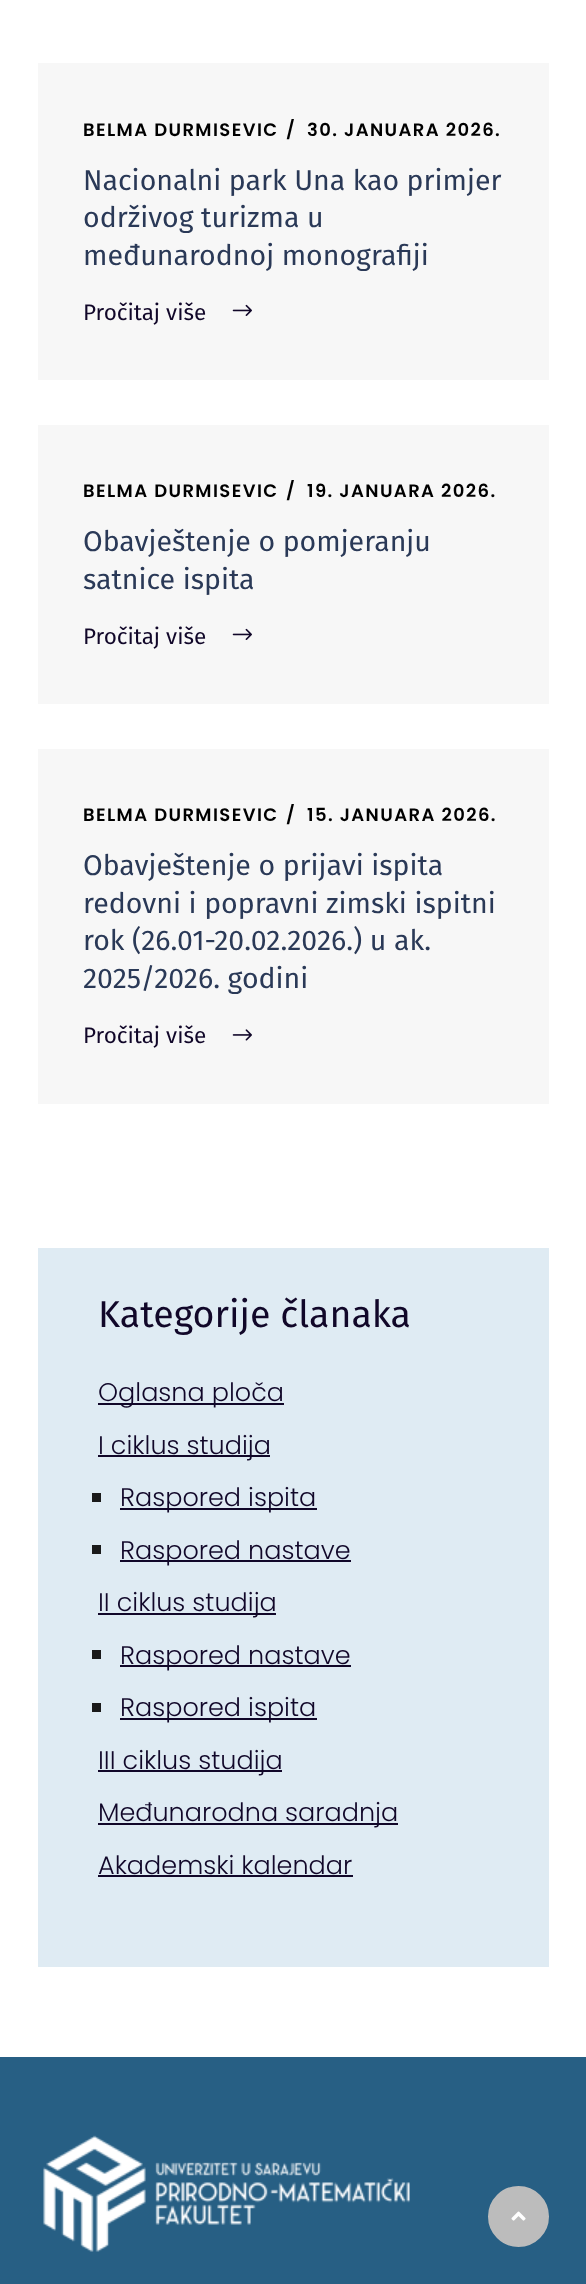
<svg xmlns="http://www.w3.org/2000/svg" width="586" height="2284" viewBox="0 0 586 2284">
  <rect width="100%" height="100%" fill="#fff"/>
  <path d="M38 63h511v317H38z" fill="#f7f7f7"/>
  <image x="232" y="304" width="20" height="12" href="img/1.png"/>
  <path d="M38 425h511v279H38z" fill="#f7f7f7"/>
  <image x="232" y="628" width="20" height="12" href="img/1.png"/>
  <path d="M38 749h511v355H38z" fill="#f7f7f7"/>
  <image x="232" y="1029" width="20" height="12" href="img/2.png"/>
  <path d="M38 1248h511v719H38z" fill="#dfebf3"/>
  <path d="M98 1403h186v2H98z" fill="#110729"/>
  <path d="M98 1455h172v2H98z" fill="#110729"/>
  <path d="M92 1493h9v9H92z" fill="#1a1a1a"/>
  <path d="M120 1508h197v2H120z" fill="#110729"/>
  <path d="M92 1545h9v9H92z" fill="#1a1a1a"/>
  <path d="M120 1560h231v2H120z" fill="#110729"/>
  <path d="M98 1613h178v2H98z" fill="#110729"/>
  <path d="M92 1650h9v9H92z" fill="#1a1a1a"/>
  <path d="M120 1665h231v2H120z" fill="#110729"/>
  <path d="M92 1703h9v9H92z" fill="#1a1a1a"/>
  <path d="M120 1718h197v2H120z" fill="#110729"/>
  <path d="M98 1770h184v2H98z" fill="#110729"/>
  <path d="M98 1823h300v2H98z" fill="#110729"/>
  <path d="M98 1875h255v2H98z" fill="#110729"/>
  <path d="M0 2057h586v227H0z" fill="#275f84"/>
  <image x="43" y="2135" width="367" height="117" href="img/3.png"/>
  <circle cx="518.5" cy="2216.5" r="29.5" fill="#bcbcbc" stroke="#bcbcbc" stroke-width="2"/>
  <image x="511" y="2211" width="15" height="10" href="img/4.png"/>
  <g font-family="Poppins" font-size="18" font-weight="600" letter-spacing="1.4" fill="#000">
    <text x="83" y="136">BELMA DURMISEVIC</text>
    <text x="286" y="136">/</text>
    <text x="307" y="136">30. JANUARA 2026.</text>
  </g>
  <g font-family="Fira Sans" font-size="28.5" fill="#2a3957">
    <text x="83" y="190">Nacionalni park Una kao primjer</text>
    <text x="83" y="227">održivog turizma u</text>
    <text x="83" y="265">međunarodnoj monografiji</text>
  </g>
  <text x="83" y="320" font-family="Fira Sans" font-size="22.5" fill="#110729">Pročitaj više</text>
  <g font-family="Poppins" font-size="18" font-weight="600" letter-spacing="1.4" fill="#000">
    <text x="83" y="497">BELMA DURMISEVIC</text>
    <text x="286" y="497">/</text>
    <text x="307" y="497">19. JANUARA 2026.</text>
  </g>
  <g font-family="Fira Sans" font-size="28.5" fill="#2a3957">
    <text x="83" y="551">Obavještenje o pomjeranju</text>
    <text x="83" y="589">satnice ispita</text>
  </g>
  <text x="83" y="644" font-family="Fira Sans" font-size="22.5" fill="#110729">Pročitaj više</text>
  <g font-family="Poppins" font-size="18" font-weight="600" letter-spacing="1.4" fill="#000">
    <text x="83" y="821">BELMA DURMISEVIC</text>
    <text x="286" y="821">/</text>
    <text x="307" y="821">15. JANUARA 2026.</text>
  </g>
  <g font-family="Fira Sans" font-size="28.5" fill="#2a3957">
    <text x="83" y="875">Obavještenje o prijavi ispita</text>
    <text x="83" y="913">redovni i popravni zimski ispitni</text>
    <text x="83" y="950">rok (26.01-20.02.2026.) u ak.</text>
    <text x="83" y="988">2025/2026. godini</text>
  </g>
  <text x="83" y="1043" font-family="Fira Sans" font-size="22.5" fill="#110729">Pročitaj više</text>
  <text x="98" y="1327" font-family="Fira Sans" font-size="37.5" fill="#110729">Kategorije članaka</text>
  <g font-family="Poppins" font-size="25.5" font-weight="300" fill="#110729">
    <text x="98" y="1401">Oglasna ploča</text>
    <text x="98" y="1454">I ciklus studija</text>
    <text x="120" y="1506">Raspored ispita</text>
    <text x="120" y="1559">Raspored nastave</text>
    <text x="98" y="1611">II ciklus studija</text>
    <text x="120" y="1664">Raspored nastave</text>
    <text x="120" y="1716">Raspored ispita</text>
    <text x="98" y="1769">III ciklus studija</text>
    <text x="98" y="1821">Međunarodna saradnja</text>
    <text x="98" y="1874">Akademski kalendar</text>
  </g>
</svg>
